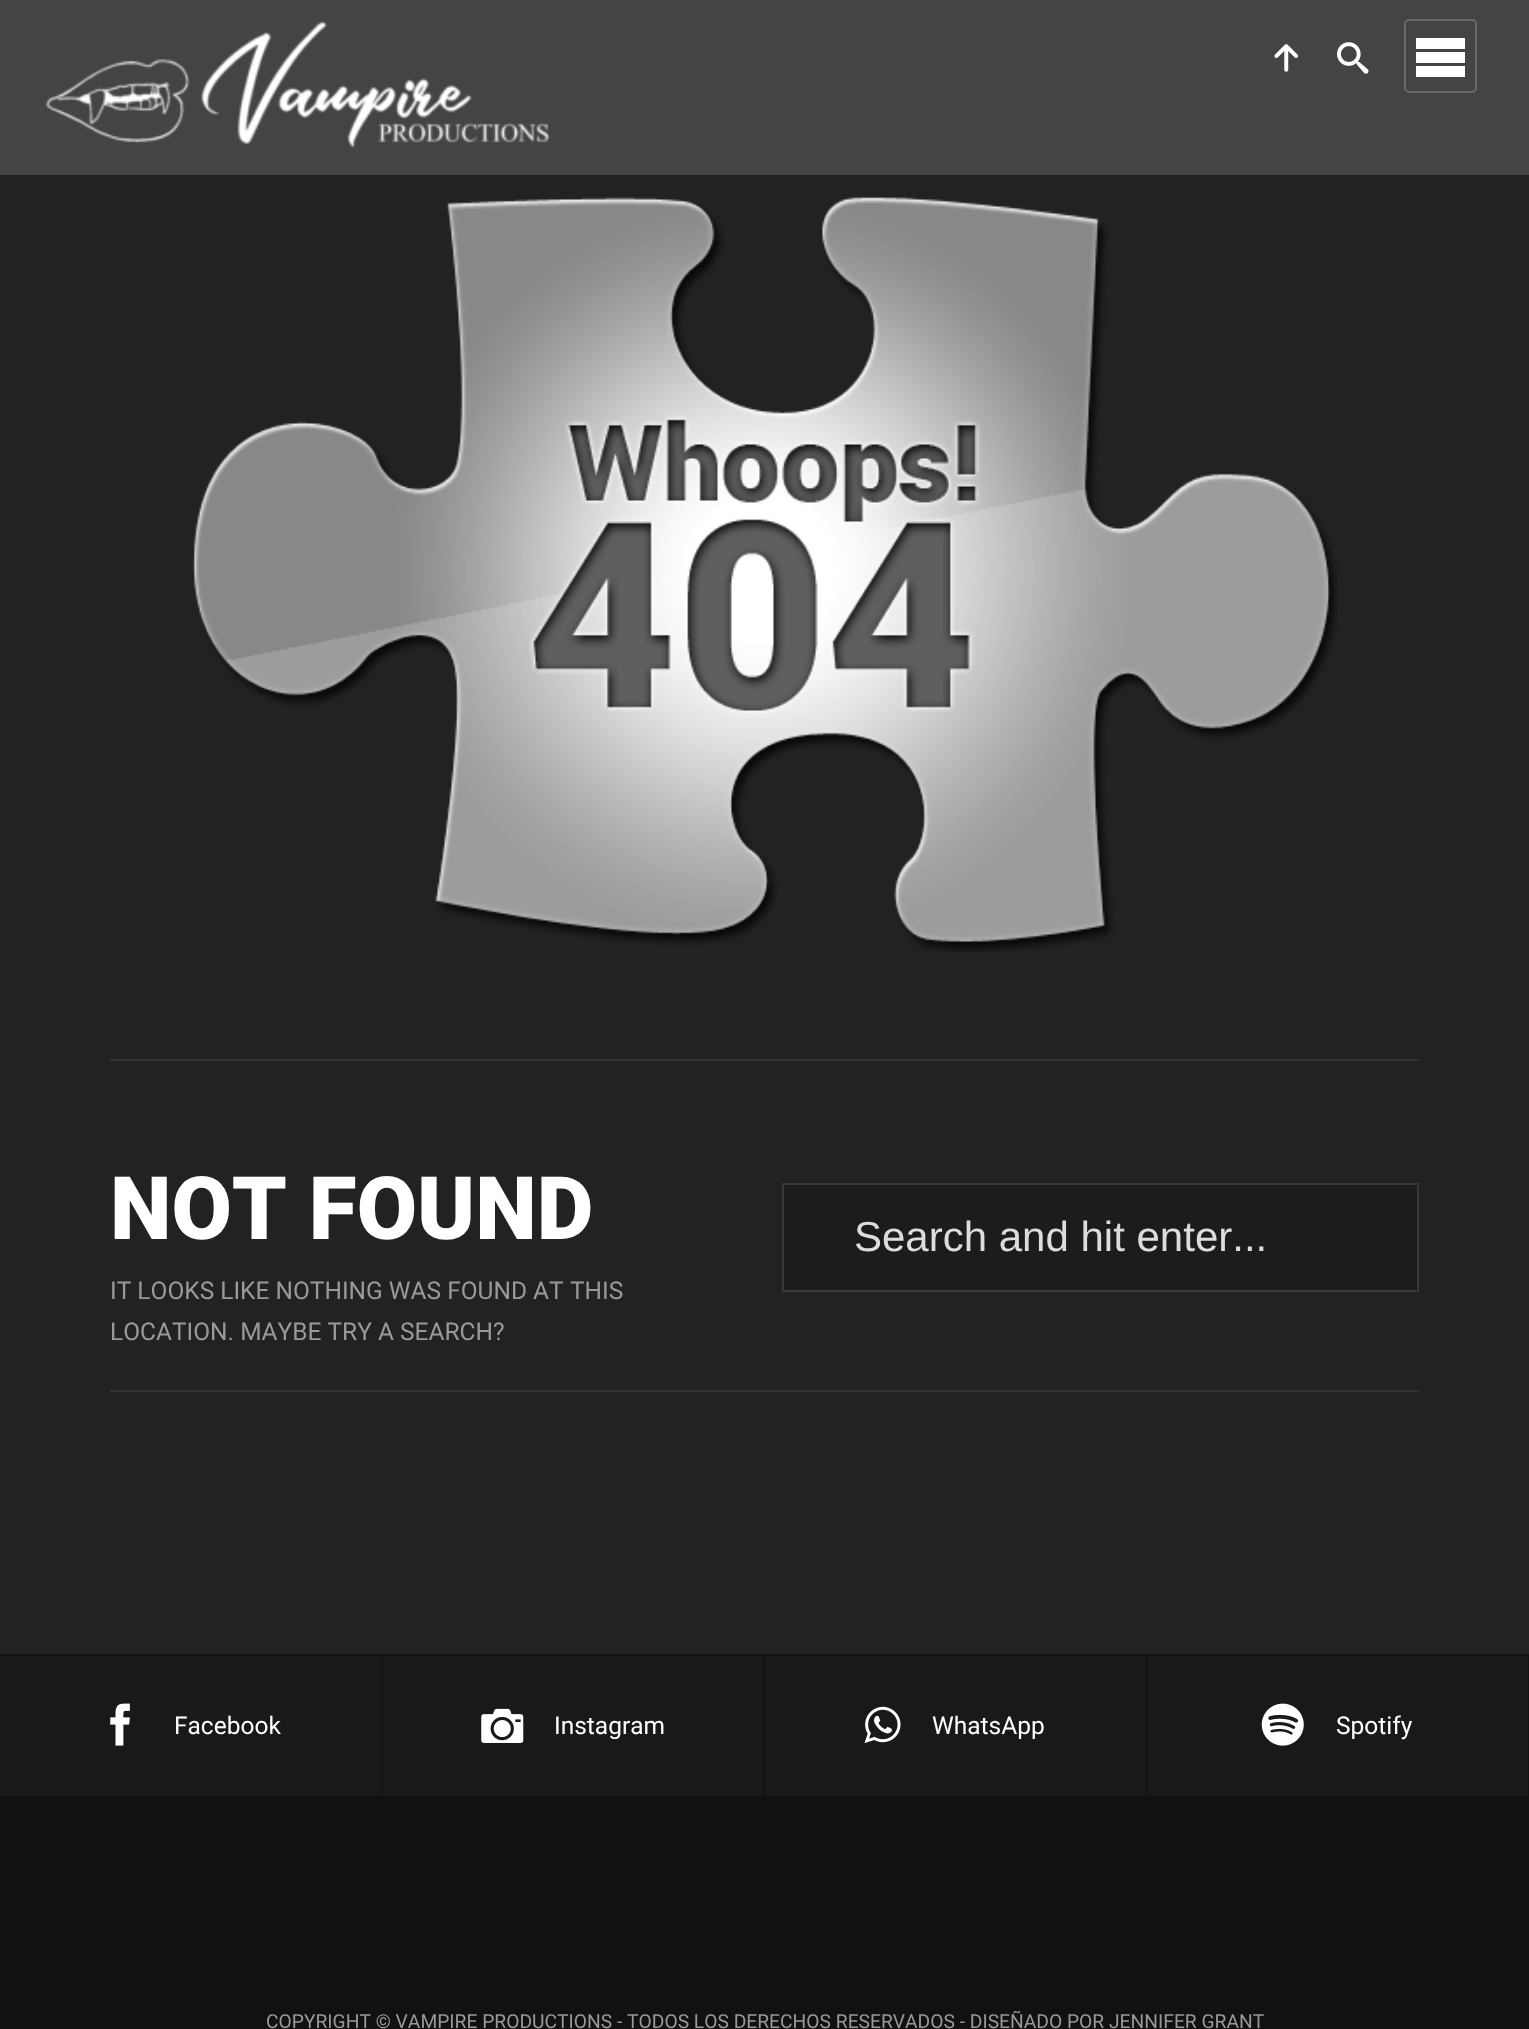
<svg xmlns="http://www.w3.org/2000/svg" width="1529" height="2029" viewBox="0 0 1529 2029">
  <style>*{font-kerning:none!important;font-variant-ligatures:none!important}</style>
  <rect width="100%" height="100%" fill="#222"/>
  <path d="M0 0h1529v175H0z" fill="#444"/>
  <image x="45" y="21" width="505" height="127" href="img/1.png"/>
  <image x="1274" y="44" width="24" height="28" href="img/2.png"/>
  <image x="1337" y="42" width="32" height="32" href="img/3.png"/>
  <rect x="1405" y="20" width="71" height="72" rx="4" fill="none" stroke="#696969" stroke-width="2"/>
  <path d="M1416 38H1465V49H1416ZM1416 52H1465V63H1416ZM1416 66H1465V77H1416Z" fill="#fff"/>
  <image x="192" y="197" width="1146" height="755" href="img/4.png"/>
  <path d="M110 1059h1309v2H110z" fill="#333"/>
  <path d="M783 1184h635v107H783z" fill="#1b1c1d" stroke="#383838" stroke-width="2"/>
  <path d="M110 1390h1309v2H110z" fill="#333"/>
  <path d="M0 1656h1529v141H0z" fill="#191919"/>
  <path d="M0 1654h1529v2H0z" fill="#121212"/>
  <path d="M383 1656V1797L382 1796V1656Z" fill="#121212"/>
  <path d="M383 1797H0V1796H382Z" fill="#0000004d"/>
  <image x="110" y="1703" width="20" height="43" href="img/5.png"/>
  <path d="M765 1656V1797L763 1796V1656Z" fill="#121212"/>
  <path d="M765 1797H383V1796H763Z" fill="#111"/>
  <image x="481" y="1708" width="43" height="35" href="img/6.png"/>
  <path d="M1148 1656V1797L1146 1796V1656Z" fill="#121212"/>
  <path d="M1148 1797H765V1796H1146Z" fill="#111"/>
  <image x="864" y="1706" width="37" height="38" href="img/7.png"/>
  <path d="M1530 1656V1797L1528 1796V1656Z" fill="#121212"/>
  <path d="M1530 1797H1148V1796H1528Z" fill="#111"/>
  <image x="1261" y="1703" width="43" height="43" href="img/8.png"/>
  <path d="M0 1797h1529v232H0z" fill="#111"/>
  <text x="110" y="1239" font-family="Roboto" font-size="87.5" font-weight="900" fill="#fff">NOT FOUND</text>
  <g font-family="Roboto" font-size="24.5" fill="#999">
    <text x="110" y="1299">IT LOOKS LIKE NOTHING WAS FOUND AT</text>
    <text x="570" y="1299">THIS</text>
    <text x="110" y="1340">LOCATION. MAYBE TRY A SEARCH?</text>
  </g>
  <text x="854" y="1251" font-family="Liberation Sans" font-size="42" fill="#ddd">Search and hit enter...</text>
  <g font-family="Roboto" font-size="24.5" fill="#fff">
    <text x="174" y="1734">Facebook</text>
    <text x="554" y="1734">Instagram</text>
    <text x="932" y="1734">WhatsApp</text>
    <text x="1336" y="1734">Spotify</text>
  </g>
  <text x="266" y="2028" font-family="Roboto" font-size="19.25" fill="#999">COPYRIGHT © VAMPIRE PRODUCTIONS - TODOS LOS DERECHOS RESERVADOS - DISEÑADO POR JENNIFER GRANT</text>
</svg>
